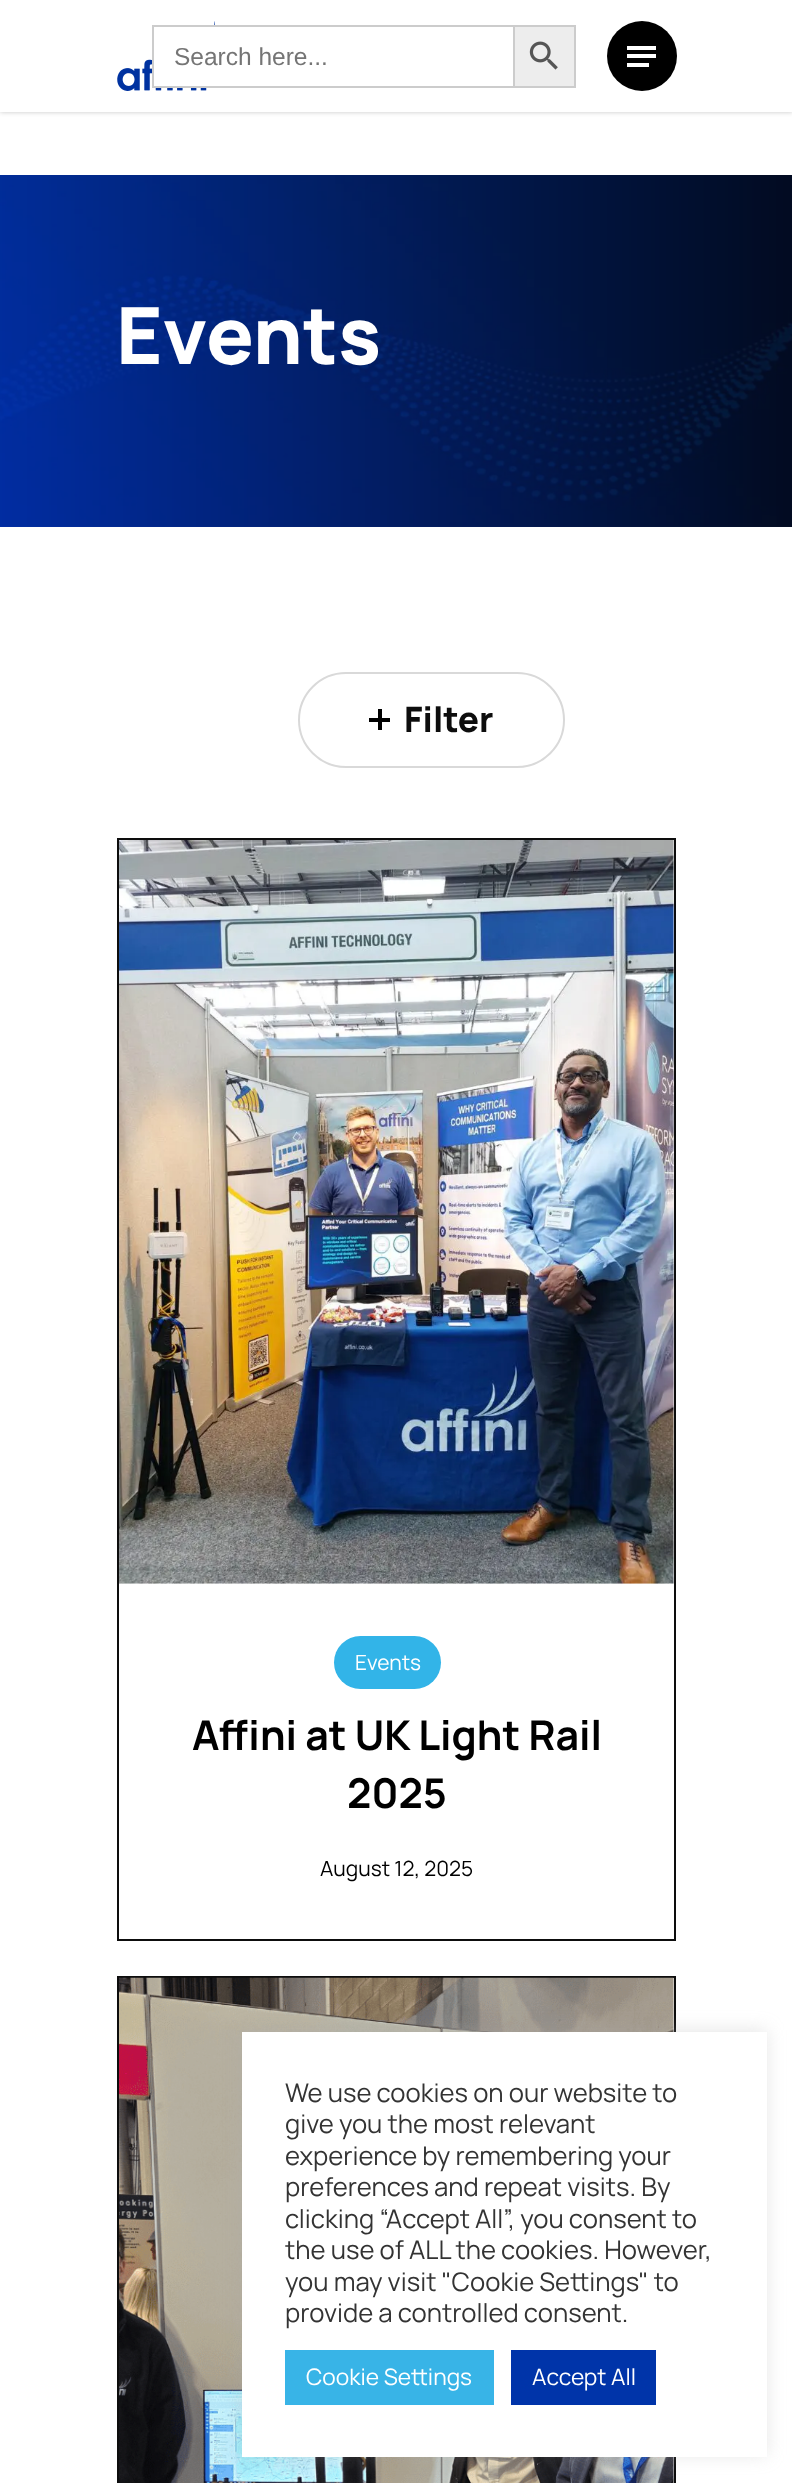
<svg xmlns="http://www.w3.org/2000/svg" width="792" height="2483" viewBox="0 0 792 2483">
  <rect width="100%" height="100%" fill="#fff"/>
  <path d="M0 0h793v112H0z" fill="#00000038" filter="blur(2.5px)"/>
  <path d="M0 0h792v112H0z" fill="#fff"/>
  <image x="117" y="21" width="98" height="70" href="img/1.png"/>
  <path d="M154 27h61v59H154z" fill="#fff"/>
  <path d="M152 25h361v2H152z" fill="#ccc"/>
  <path d="M152 86h361v2H152z" fill="#ccc"/>
  <path d="M152 25h2v63H152z" fill="#ccc"/>
  <path d="M514 26h61v61H514z" fill="#ededed" stroke="#ccc" stroke-width="2"/>
  <image x="529" y="41" width="29" height="29" href="img/2.png"/>
  <circle cx="642" cy="56" r="35" fill="#000"/>
  <path d="M627 46h29v4H627z" fill="#fff"/>
  <path d="M627 63h22v4H627z" fill="#fff"/>
  <path d="M627 54h29v4H627z" fill="#fff"/>
  <image x="0" y="175" width="792" height="352" href="img/3.png"/>
  <rect x="299" y="673" width="265" height="94" rx="47" fill="none" stroke="#d9d9d9" stroke-width="2"/>
  <path d="M378 709h4v21H378z" fill="#000"/>
  <path d="M369 718h21v4H369z" fill="#000"/>
  <path d="M118 839h557v1101H118z" fill="none" stroke="#0d0d0d" stroke-width="2"/>
  <image x="119" y="840" width="555" height="744" href="img/4.png"/>
  <rect x="334" y="1636" width="107" height="53" rx="26.5" fill="#32b4e8"/>
  <path d="M118 1977h557v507H118z" fill="none" stroke="#0d0d0d" stroke-width="2"/>
  <image x="119" y="1977" width="555" height="506" href="img/5.png"/>
  <path d="M242 2030h525v425H242z" fill="#acabab4d" filter="blur(9px)"/>
  <path d="M242 2032h525v425H242z" fill="#fff"/>
  <path d="M285 2350h209v55H285z" fill="#38b4e7"/>
  <path d="M511 2350h145v55H511z" fill="#0034a9"/>
  <text x="174" y="65" font-family="Liberation Sans" font-size="24.5" fill="#757575">Search here...</text>
  <text x="116" y="364" font-family="Manrope" font-size="79" font-weight="800" fill="#fff">Events</text>
  <text x="404" y="732" font-family="Manrope" font-size="35" font-weight="800" fill="#0d0d0d">Filter</text>
  <text x="355" y="1670" font-family="Manrope" font-size="21" fill="#fff">Events</text>
  <g font-family="Manrope" font-size="41" font-weight="bold" fill="#000">
    <text x="192" y="1750">Affini at UK Light Rail</text>
    <text x="347" y="1808">2025</text>
  </g>
  <text x="320" y="1876" font-family="Manrope" font-size="21" fill="#000">August 12, 2025</text>
  <g font-family="Manrope" font-size="25.7" fill="#333">
    <text x="285" y="2102">We use cookies on our website to</text>
    <text x="285" y="2133">give you the most relevant</text>
    <text x="285" y="2165">experience by remembering your</text>
    <text x="285" y="2196">preferences and repeat visits. By</text>
    <text x="285" y="2228">clicking “Accept All”, you consent to</text>
    <text x="285" y="2259">the use of ALL the cookies. However,</text>
    <text x="285" y="2291">you may visit "Cookie Settings" to</text>
    <text x="285" y="2322">provide a controlled consent.</text>
  </g>
  <g font-family="Manrope" font-size="22.75" fill="#fff">
    <text x="306" y="2385">Cookie Settings</text>
    <text x="532" y="2385">Accept All</text>
  </g>
</svg>
